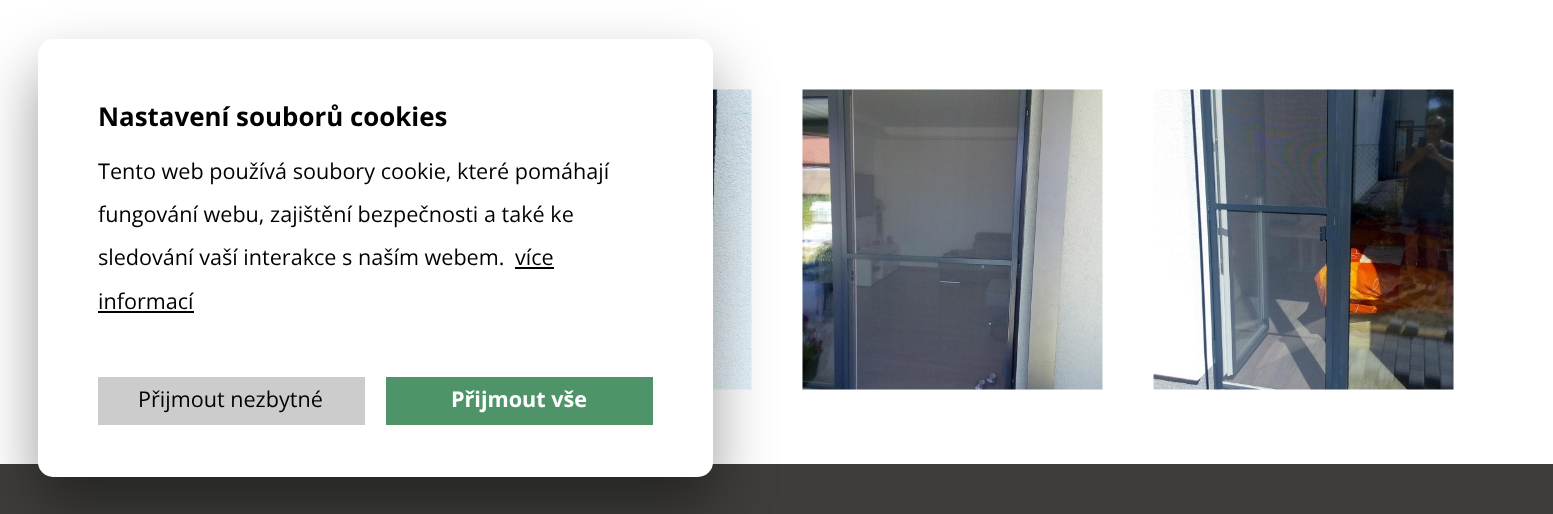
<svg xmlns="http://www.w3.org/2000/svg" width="1553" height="514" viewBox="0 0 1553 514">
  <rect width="100%" height="100%" fill="#3e3d3b"/>
  <path d="M0 0h1553v464H0z" fill="#fff"/>
  <image x="713" y="89" width="39" height="301" href="img/1.png"/>
  <image x="802" y="89" width="301" height="301" href="img/2.png"/>
  <image x="1153" y="89" width="301" height="301" href="img/3.png"/>
  <rect x="38" y="69" width="675" height="438" rx="15" fill="#00000066" filter="blur(30px)"/>
  <rect x="38" y="39" width="675" height="438" rx="15" fill="#fff"/>
  <path d="M515 267h39v2H515z" fill="#000"/>
  <path d="M98 311h96v2H98z" fill="#000"/>
  <path d="M98 377h267v48H98z" fill="#ccc"/>
  <path d="M386 377h267v48H386z" fill="#4f9369"/>
  <text x="98" y="126" font-family="Open Sans" font-size="25.9" font-weight="bold" fill="#000">Nastavení souborů cookies</text>
  <g font-family="Open Sans" font-size="21.6" fill="#000">
    <text x="98" y="179">Tento web používá soubory cookie, které pomáhají</text>
    <text x="98" y="222">fungování webu, zajištění bezpečnosti a také ke</text>
    <text x="98" y="265">sledování vaší interakce s naším webem.</text>
    <text x="515" y="265">více</text>
    <text x="98" y="309">informací</text>
    <text x="138" y="407">Přijmout nezbytné</text>
  </g>
  <text x="451" y="407" font-family="Open Sans" font-size="21.6" font-weight="bold" fill="#fff">Přijmout vše</text>
</svg>
